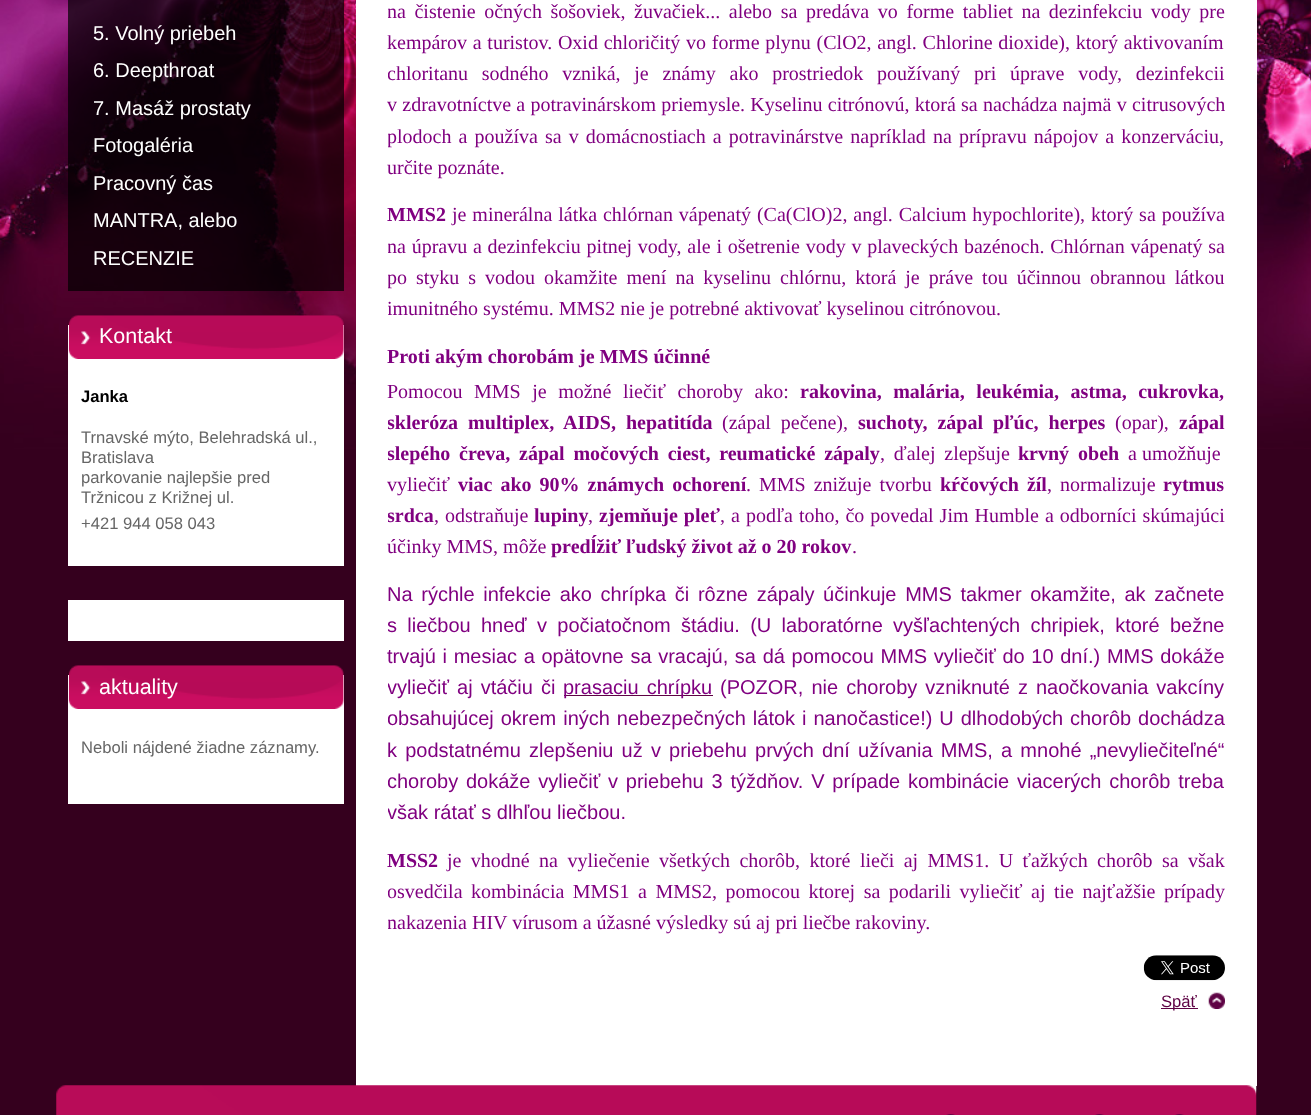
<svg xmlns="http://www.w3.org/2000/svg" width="1311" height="1115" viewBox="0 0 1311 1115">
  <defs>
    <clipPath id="clip1"><path d="M388 0h837v1010H388z"/></clipPath>
  </defs>
  <rect width="100%" height="100%" fill="#35001e"/>
  <image x="0" y="0" width="1311" height="449" href="img/1.png"/>
  <path d="M356 0h901v1086H356z" fill="#fff"/>
  <path d="M68 0h276v291H68z" fill="#000000b3"/>
  <path d="M68 325h276v241H68z" fill="#fff"/>
  <image x="68" y="315" width="276" height="44" href="img/2.png"/>
  <path d="M68 600h276v41H68z" fill="#fff"/>
  <path d="M68 675h276v129H68z" fill="#fff"/>
  <image x="68" y="665" width="276" height="44" href="img/3.png"/>
  <path d="M564 695h149v1H564z" fill="#5e0344"/>
  <image x="1143" y="955" width="82" height="26" href="img/4.png"/>
  <image x="1208" y="992" width="17" height="17" href="img/5.png"/>
  <path d="M1161 1008h37v1H1161z" fill="#5e0344"/>
  <image x="56" y="1085" width="1201" height="30" href="img/6.png"/>
  <image x="946" y="1114" width="9" height="1" href="img/7.png"/>
  <image x="1095" y="1114" width="9" height="1" href="img/8.png"/>
  <image x="1175" y="1114" width="9" height="1" href="img/8.png"/>
  <g font-family="Liberation Sans" font-size="20" fill="#fff">
    <text x="93" y="40">5. Volný priebeh</text>
    <text x="93" y="77">6. Deepthroat</text>
    <text x="93" y="115">7. Masáž prostaty</text>
    <text x="93" y="152">Fotogaléria</text>
    <text x="93" y="190">Pracovný čas</text>
    <text x="93" y="227">MANTRA, alebo</text>
    <text x="93" y="265">RECENZIE</text>
  </g>
  <text x="99" y="343" font-family="Liberation Sans" font-size="21.5" fill="#fff">Kontakt</text>
  <text x="81" y="402" font-family="Liberation Sans" font-size="16.6" font-weight="bold" fill="#000">Janka</text>
  <g font-family="Liberation Sans" font-size="16.6" fill="#666">
    <text x="81" y="443">Trnavské mýto, Belehradská ul.,</text>
    <text x="81" y="463">Bratislava</text>
    <text x="81" y="483">parkovanie najlepšie pred</text>
    <text x="81" y="503">Tržnicou z Križnej ul.</text>
    <text x="81" y="529">+421 944 058 043</text>
  </g>
  <text x="99" y="694" font-family="Liberation Sans" font-size="21.5" fill="#fff">aktuality</text>
  <text x="81" y="753" font-family="Liberation Sans" font-size="16.6" fill="#666">Neboli nájdené žiadne záznamy.</text>
  <g clip-path="url(#clip1)">
    <text x="387" y="18" word-spacing="3.6" font-family="Liberation Serif" font-size="20" fill="#800080">na čistenie očných šošoviek, žuvačiek... alebo sa predáva vo forme tabliet na dezinfekciu vody pre</text>
  </g>
  <text x="387" y="49" word-spacing="0.75" font-family="Liberation Serif" font-size="20" fill="#800080">kempárov a turistov. Oxid chloričitý vo forme plynu (ClO2, angl. Chlorine dioxide), ktorý aktivovaním</text>
  <g clip-path="url(#clip1)">
    <text x="387" y="80" word-spacing="8.75" font-family="Liberation Serif" font-size="20" fill="#800080">chloritanu sodného vzniká, je známy ako prostriedok používaný pri úprave vody, dezinfekcii</text>
  </g>
  <text x="387" y="111" word-spacing="0.25" font-family="Liberation Serif" font-size="20" fill="#800080">v zdravotníctve a potravinárskom priemysle. Kyselinu citrónovú, ktorá sa nachádza najmä v citrusových</text>
  <g clip-path="url(#clip1)">
    <text x="387" y="143" word-spacing="2.1" font-family="Liberation Serif" font-size="20" fill="#800080">plodoch a používa sa v domácnostiach a potravinárstve napríklad na prípravu nápojov a konzerváciu,</text>
  </g>
  <text x="387" y="174" font-family="Liberation Serif" font-size="20" fill="#800080">určite poznáte.</text>
  <text x="387" y="221" font-family="Liberation Serif" font-size="20" font-weight="bold" fill="#800080">MMS2</text>
  <text x="452" y="221" word-spacing="0.9" font-family="Liberation Serif" font-size="20" fill="#800080">je minerálna látka chlórnan vápenatý (Ca(ClO)2, angl. Calcium hypochlorite), ktorý sa používa</text>
  <g clip-path="url(#clip1)">
    <g font-family="Liberation Serif" font-size="20" fill="#800080">
      <text x="387" y="253" word-spacing="0.75">na úpravu a dezinfekciu pitnej vody, ale i ošetrenie vody v plaveckých bazénoch. Chlórnan vápenatý sa</text>
      <text x="387" y="284" word-spacing="4">po styku s vodou okamžite mení na kyselinu chlórnu, ktorá je práve tou účinnou obrannou látkou</text>
      <text x="387" y="315">imunitného systému. MMS2 nie je potrebné aktivovať kyselinou citrónovou.</text>
    </g>
  </g>
  <text x="387" y="363" font-family="Liberation Serif" font-size="20" font-weight="bold" fill="#800080">Proti akým chorobám je MMS účinné</text>
  <text x="387" y="398" word-spacing="6.5" font-family="Liberation Serif" font-size="20" fill="#800080">Pomocou MMS je možné liečiť choroby ako:</text>
  <text x="800" y="398" word-spacing="6.5" font-family="Liberation Serif" font-size="20" font-weight="bold" fill="#800080">rakovina, malária, leukémia, astma, cukrovka,</text>
  <g clip-path="url(#clip1)">
    <text x="387" y="429" word-spacing="5" font-family="Liberation Serif" font-size="20" font-weight="bold" fill="#800080">skleróza multiplex, AIDS, hepatitída</text>
  </g>
  <text x="722" y="429" word-spacing="5" font-family="Liberation Serif" font-size="20" fill="#800080">(zápal pečene),</text>
  <text x="858" y="429" word-spacing="5" font-family="Liberation Serif" font-size="20" font-weight="bold" fill="#800080">suchoty, zápal pľúc, herpes</text>
  <text x="1115" y="429" font-family="Liberation Serif" font-size="20" fill="#800080">(opar),</text>
  <text x="1179" y="429" font-family="Liberation Serif" font-size="20" font-weight="bold" fill="#800080">zápal</text>
  <g clip-path="url(#clip1)">
    <text x="387" y="460" word-spacing="3.75" font-family="Liberation Serif" font-size="20" font-weight="bold" fill="#800080">slepého čreva, zápal močových ciest, reumatické zápaly</text>
  </g>
  <text x="880" y="460" word-spacing="3.75" font-family="Liberation Serif" font-size="20" fill="#800080">, ďalej zlepšuje</text>
  <text x="1018" y="460" word-spacing="4" font-family="Liberation Serif" font-size="20" font-weight="bold" fill="#800080">krvný obeh</text>
  <g font-family="Liberation Serif" font-size="20" fill="#800080">
    <text x="1128" y="460">a umožňuje</text>
    <text x="387" y="491">vyliečiť</text>
  </g>
  <text x="458" y="491" word-spacing="3" font-family="Liberation Serif" font-size="20" font-weight="bold" fill="#800080">viac ako 90% známych ochorení</text>
  <text x="746" y="491" word-spacing="3" font-family="Liberation Serif" font-size="20" fill="#800080">. MMS znižuje tvorbu</text>
  <text x="940" y="491" word-spacing="3" font-family="Liberation Serif" font-size="20" font-weight="bold" fill="#800080">kŕčových žíl</text>
  <text x="1047" y="491" word-spacing="3" font-family="Liberation Serif" font-size="20" fill="#800080">, normalizuje</text>
  <text x="1163" y="491" font-family="Liberation Serif" font-size="20" font-weight="bold" fill="#800080">rytmus</text>
  <g clip-path="url(#clip1)">
    <text x="387" y="522" font-family="Liberation Serif" font-size="20" font-weight="bold" fill="#800080">srdca</text>
  </g>
  <text x="434" y="522" word-spacing="1" font-family="Liberation Serif" font-size="20" fill="#800080">, odstraňuje</text>
  <text x="534" y="522" font-family="Liberation Serif" font-size="20" font-weight="bold" fill="#800080">lupiny</text>
  <text x="588" y="522" font-family="Liberation Serif" font-size="20" fill="#800080">,</text>
  <text x="599" y="522" word-spacing="1" font-family="Liberation Serif" font-size="20" font-weight="bold" fill="#800080">zjemňuje pleť</text>
  <g font-family="Liberation Serif" font-size="20" fill="#800080">
    <text x="720" y="522" word-spacing="1">, a podľa toho, čo povedal Jim Humble a odborníci skúmajúci</text>
    <text x="387" y="553">účinky MMS, môže</text>
  </g>
  <text x="551" y="553" font-family="Liberation Serif" font-size="20" font-weight="bold" fill="#800080">predĺžiť ľudský život až o 20 rokov</text>
  <text x="852" y="553" font-family="Liberation Serif" font-size="20" fill="#800080">.</text>
  <text x="387" y="601" word-spacing="3.1" font-family="Liberation Sans" font-size="20" fill="#800080">Na rýchle infekcie ako chrípka či rôzne zápaly účinkuje MMS takmer okamžite, ak začnete</text>
  <g clip-path="url(#clip1)">
    <text x="387" y="632" word-spacing="4.75" font-family="Liberation Sans" font-size="20" fill="#800080">s liečbou hneď v počiatočnom štádiu. (U laboratórne vyšľachtených chripiek, ktoré bežne</text>
  </g>
  <text x="387" y="663" word-spacing="1.1" font-family="Liberation Sans" font-size="20" fill="#800080">trvajú i mesiac a opätovne sa vracajú, sa dá pomocou MMS vyliečiť do 10 dní.) MMS dokáže</text>
  <g clip-path="url(#clip1)">
    <text x="387" y="694" word-spacing="2.5" font-family="Liberation Sans" font-size="20" fill="#800080">vyliečiť aj vtáčiu či</text>
  </g>
  <g font-family="Liberation Sans" font-size="20" fill="#800080">
    <text x="563" y="694" word-spacing="2.5">prasaciu chrípku</text>
    <text x="720" y="694" word-spacing="2.5">(POZOR, nie choroby vzniknuté z naočkovania vakcíny</text>
  </g>
  <g clip-path="url(#clip1)">
    <text x="387" y="725" word-spacing="1.4" font-family="Liberation Sans" font-size="20" fill="#800080">obsahujúcej okrem iných nebezpečných látok i nanočastice!) U dlhodobých chorôb dochádza</text>
  </g>
  <text x="387" y="757" word-spacing="2.6" font-family="Liberation Sans" font-size="20" fill="#800080">k podstatnému zlepšeniu už v priebehu prvých dní užívania MMS, a mnohé „nevyliečiteľné“</text>
  <g clip-path="url(#clip1)">
    <g font-family="Liberation Sans" font-size="20" fill="#800080">
      <text x="387" y="788" word-spacing="2.25">choroby dokáže vyliečiť v priebehu 3 týždňov. V prípade kombinácie viacerých chorôb treba</text>
      <text x="387" y="819">však rátať s dlhľou liečbou.</text>
    </g>
  </g>
  <text x="387" y="867" font-family="Liberation Serif" font-size="20" font-weight="bold" fill="#800080">MSS2</text>
  <text x="447" y="867" word-spacing="4.4" font-family="Liberation Serif" font-size="20" fill="#800080">je vhodné na vyliečenie všetkých chorôb, ktoré lieči aj MMS1. U ťažkých chorôb sa však</text>
  <g clip-path="url(#clip1)">
    <g font-family="Liberation Serif" font-size="20" fill="#800080">
      <text x="387" y="898" word-spacing="3.5">osvedčila kombinácia MMS1 a MMS2, pomocou ktorej sa podarili vyliečiť aj tie najťažšie prípady</text>
      <text x="387" y="929">nakazenia HIV vírusom a úžasné výsledky sú aj pri liečbe rakoviny.</text>
    </g>
  </g>
  <text x="1161" y="1007" font-family="Liberation Sans" font-size="16.6" fill="#5e0344">Späť</text>
</svg>
